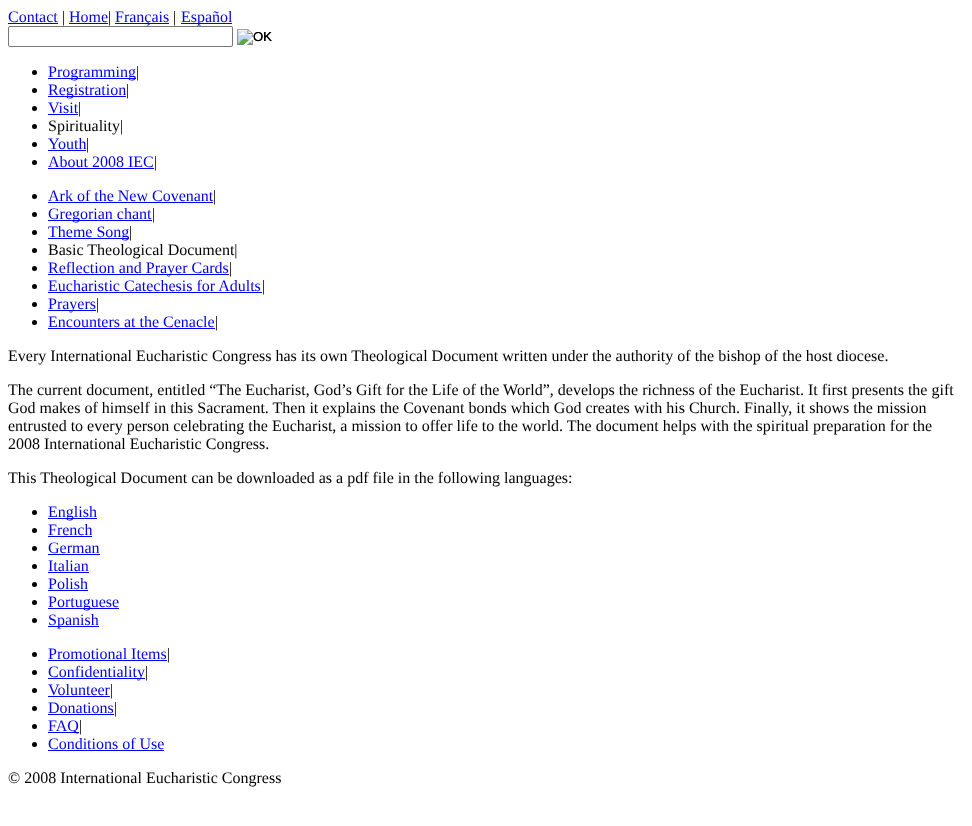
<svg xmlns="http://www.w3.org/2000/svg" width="972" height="826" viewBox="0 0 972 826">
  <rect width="100%" height="100%" fill="#fff"/>
  <path d="M8 23h50v1H8z" fill="#00e"/>
  <path d="M69 23h39v1H69z" fill="#00e"/>
  <path d="M115 23h54v1H115z" fill="#00e"/>
  <path d="M181 23h51v1H181z" fill="#00e"/>
  <rect x="8.5" y="26.5" width="224" height="20" rx="1.5" fill="none" stroke="#767676"/>
  <image x="237" y="29" width="35" height="16" href="img/1.png"/>
  <circle cx="34.5" cy="72.5" r="2.5" fill="#000"/>
  <path d="M48 78h88v1H48z" fill="#00e"/>
  <circle cx="34.5" cy="90.5" r="2.5" fill="#000"/>
  <path d="M48 96h78v1H48z" fill="#00e"/>
  <circle cx="34.5" cy="108.5" r="2.5" fill="#000"/>
  <path d="M48 114h30v1H48z" fill="#00e"/>
  <circle cx="34.5" cy="126.5" r="2.5" fill="#000"/>
  <circle cx="34.5" cy="144.5" r="2.5" fill="#000"/>
  <path d="M48 150h38v1H48z" fill="#00e"/>
  <circle cx="34.5" cy="162.5" r="2.5" fill="#000"/>
  <path d="M48 168h106v1H48z" fill="#00e"/>
  <circle cx="34.5" cy="196.5" r="2.5" fill="#000"/>
  <path d="M48 202h165v1H48z" fill="#00e"/>
  <circle cx="34.5" cy="214.5" r="2.5" fill="#000"/>
  <path d="M48 220h104v1H48z" fill="#00e"/>
  <circle cx="34.5" cy="232.5" r="2.5" fill="#000"/>
  <path d="M48 238h81v1H48z" fill="#00e"/>
  <circle cx="34.5" cy="250.5" r="2.5" fill="#000"/>
  <circle cx="34.5" cy="268.5" r="2.5" fill="#000"/>
  <path d="M48 274h181v1H48z" fill="#00e"/>
  <circle cx="34.5" cy="286.5" r="2.5" fill="#000"/>
  <path d="M48 292h214v1H48z" fill="#00e"/>
  <circle cx="34.5" cy="304.5" r="2.5" fill="#000"/>
  <path d="M48 310h48v1H48z" fill="#00e"/>
  <circle cx="34.5" cy="322.5" r="2.5" fill="#000"/>
  <path d="M48 328h167v1H48z" fill="#00e"/>
  <circle cx="34.5" cy="512.5" r="2.5" fill="#000"/>
  <path d="M48 518h49v1H48z" fill="#00e"/>
  <circle cx="34.5" cy="530.5" r="2.5" fill="#000"/>
  <path d="M48 536h44v1H48z" fill="#00e"/>
  <circle cx="34.5" cy="548.5" r="2.5" fill="#000"/>
  <path d="M48 554h52v1H48z" fill="#00e"/>
  <circle cx="34.5" cy="566.5" r="2.5" fill="#000"/>
  <path d="M48 572h41v1H48z" fill="#00e"/>
  <circle cx="34.5" cy="584.5" r="2.5" fill="#000"/>
  <path d="M48 590h40v1H48z" fill="#00e"/>
  <circle cx="34.5" cy="602.5" r="2.5" fill="#000"/>
  <path d="M48 608h71v1H48z" fill="#00e"/>
  <circle cx="34.5" cy="620.5" r="2.5" fill="#000"/>
  <path d="M48 626h51v1H48z" fill="#00e"/>
  <circle cx="34.5" cy="654.5" r="2.5" fill="#000"/>
  <path d="M48 660h119v1H48z" fill="#00e"/>
  <circle cx="34.5" cy="672.5" r="2.5" fill="#000"/>
  <path d="M48 678h97v1H48z" fill="#00e"/>
  <circle cx="34.5" cy="690.5" r="2.5" fill="#000"/>
  <path d="M48 696h62v1H48z" fill="#00e"/>
  <circle cx="34.5" cy="708.5" r="2.5" fill="#000"/>
  <path d="M48 714h66v1H48z" fill="#00e"/>
  <circle cx="34.5" cy="726.5" r="2.5" fill="#000"/>
  <path d="M48 732h31v1H48z" fill="#00e"/>
  <circle cx="34.5" cy="744.5" r="2.5" fill="#000"/>
  <path d="M48 750h116v1H48z" fill="#00e"/>
  <text x="8" y="22" font-family="Liberation Serif" font-size="16" fill="#00e">Contact</text>
  <text x="62" y="22" font-family="Liberation Serif" font-size="16" fill="#000">|</text>
  <text x="69" y="22" font-family="Liberation Serif" font-size="16" fill="#00e">Home</text>
  <text x="108" y="22" font-family="Liberation Serif" font-size="16" fill="#000">|</text>
  <text x="115" y="22" font-family="Liberation Serif" font-size="16" fill="#00e">Français</text>
  <text x="173" y="22" font-family="Liberation Serif" font-size="16" fill="#000">|</text>
  <text x="181" y="22" font-family="Liberation Serif" font-size="16" fill="#00e">Español</text>
  <text x="253" y="41" font-family="Liberation Sans" font-size="13" fill="#000">OK</text>
  <text x="48" y="77" font-family="Liberation Serif" font-size="16" fill="#00e">Programming</text>
  <text x="136" y="77" font-family="Liberation Serif" font-size="16" fill="#000">|</text>
  <text x="48" y="95" font-family="Liberation Serif" font-size="16" fill="#00e">Registration</text>
  <text x="126" y="95" font-family="Liberation Serif" font-size="16" fill="#000">|</text>
  <text x="48" y="113" font-family="Liberation Serif" font-size="16" fill="#00e">Visit</text>
  <g font-family="Liberation Serif" font-size="16" fill="#000">
    <text x="78" y="113">|</text>
    <text x="48" y="131">Spirituality|</text>
  </g>
  <text x="48" y="149" font-family="Liberation Serif" font-size="16" fill="#00e">Youth</text>
  <text x="86" y="149" font-family="Liberation Serif" font-size="16" fill="#000">|</text>
  <text x="48" y="167" font-family="Liberation Serif" font-size="16" fill="#00e">About 2008 IEC</text>
  <text x="154" y="167" font-family="Liberation Serif" font-size="16" fill="#000">|</text>
  <text x="48" y="201" font-family="Liberation Serif" font-size="16" fill="#00e">Ark of the New Covenant</text>
  <text x="213" y="201" font-family="Liberation Serif" font-size="16" fill="#000">|</text>
  <text x="48" y="219" font-family="Liberation Serif" font-size="16" fill="#00e">Gregorian chant</text>
  <text x="152" y="219" font-family="Liberation Serif" font-size="16" fill="#000">|</text>
  <text x="48" y="237" font-family="Liberation Serif" font-size="16" fill="#00e">Theme Song</text>
  <g font-family="Liberation Serif" font-size="16" fill="#000">
    <text x="129" y="237">|</text>
    <text x="48" y="255">Basic Theological Document|</text>
  </g>
  <text x="48" y="273" font-family="Liberation Serif" font-size="16" fill="#00e">Reflection and Prayer Cards</text>
  <text x="229" y="273" font-family="Liberation Serif" font-size="16" fill="#000">|</text>
  <text x="48" y="291" font-family="Liberation Serif" font-size="16" fill="#00e">Eucharistic Catechesis for Adults</text>
  <text x="262" y="291" font-family="Liberation Serif" font-size="16" fill="#000">|</text>
  <text x="48" y="309" font-family="Liberation Serif" font-size="16" fill="#00e">Prayers</text>
  <text x="96" y="309" font-family="Liberation Serif" font-size="16" fill="#000">|</text>
  <text x="48" y="327" font-family="Liberation Serif" font-size="16" fill="#00e">Encounters at the Cenacle</text>
  <g font-family="Liberation Serif" font-size="16" fill="#000">
    <text x="215" y="327">|</text>
    <text x="8" y="361">Every International Eucharistic Congress has its own Theological Document written under the authority of the bishop of the host diocese.</text>
    <text x="8" y="395">The current document, entitled “The Eucharist, God’s Gift for the Life of the World”, develops the richness of the Eucharist. It first presents the gift</text>
    <text x="8" y="413">God makes of himself in this Sacrament. Then it explains the Covenant bonds which God creates with his Church. Finally, it shows the mission</text>
    <text x="8" y="431">entrusted to every person celebrating the Eucharist, a mission to offer life to the world. The document helps with the spiritual preparation for the</text>
    <text x="8" y="449">2008 International Eucharistic Congress.</text>
    <text x="8" y="483">This Theological Document can be downloaded as a pdf file in the following languages:</text>
  </g>
  <g font-family="Liberation Serif" font-size="16" fill="#00e">
    <text x="48" y="517">English</text>
    <text x="48" y="535">French</text>
    <text x="48" y="553">German</text>
    <text x="48" y="571">Italian</text>
    <text x="48" y="589">Polish</text>
    <text x="48" y="607">Portuguese</text>
    <text x="48" y="625">Spanish</text>
    <text x="48" y="659">Promotional Items</text>
  </g>
  <text x="167" y="659" font-family="Liberation Serif" font-size="16" fill="#000">|</text>
  <text x="48" y="677" font-family="Liberation Serif" font-size="16" fill="#00e">Confidentiality</text>
  <text x="145" y="677" font-family="Liberation Serif" font-size="16" fill="#000">|</text>
  <text x="48" y="695" font-family="Liberation Serif" font-size="16" fill="#00e">Volunteer</text>
  <text x="110" y="695" font-family="Liberation Serif" font-size="16" fill="#000">|</text>
  <text x="48" y="713" font-family="Liberation Serif" font-size="16" fill="#00e">Donations</text>
  <text x="114" y="713" font-family="Liberation Serif" font-size="16" fill="#000">|</text>
  <text x="48" y="731" font-family="Liberation Serif" font-size="16" fill="#00e">FAQ</text>
  <text x="79" y="731" font-family="Liberation Serif" font-size="16" fill="#000">|</text>
  <text x="48" y="749" font-family="Liberation Serif" font-size="16" fill="#00e">Conditions of Use</text>
  <text x="8" y="783" font-family="Liberation Serif" font-size="16" fill="#000">© 2008 International Eucharistic Congress</text>
</svg>
